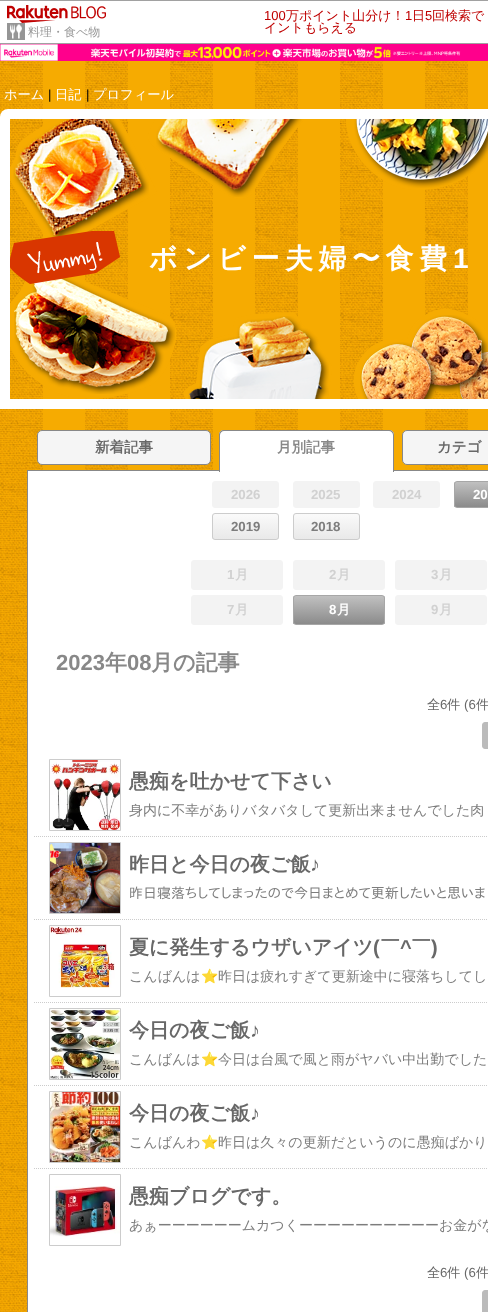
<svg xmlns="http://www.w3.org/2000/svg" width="488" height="1312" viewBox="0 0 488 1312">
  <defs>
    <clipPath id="clip1"><rect x="454" y="481" width="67" height="27" rx="3"/></clipPath>
    <linearGradient id="g1" gradientUnits="userSpaceOnUse" x1="488" y1="482" x2="488" y2="507"><stop offset="0" stop-color="#c0c0c0"/><stop offset="1" stop-color="#8b8b8b"/></linearGradient>
    <clipPath id="clip2"><rect x="212" y="513" width="67" height="27" rx="3"/></clipPath>
    <linearGradient id="g2" gradientUnits="userSpaceOnUse" x1="246" y1="514" x2="246" y2="539"><stop offset="0" stop-color="#fafafa"/><stop offset="1" stop-color="#e9e9e9"/></linearGradient>
    <clipPath id="clip3"><rect x="293" y="513" width="67" height="27" rx="3"/></clipPath>
    <linearGradient id="g3" gradientUnits="userSpaceOnUse" x1="327" y1="514" x2="327" y2="539"><stop offset="0" stop-color="#fafafa"/><stop offset="1" stop-color="#e9e9e9"/></linearGradient>
    <clipPath id="clip4"><rect x="293" y="595" width="92" height="30" rx="3"/></clipPath>
    <linearGradient id="g4" gradientUnits="userSpaceOnUse" x1="339" y1="596" x2="339" y2="624"><stop offset="0" stop-color="#c0c0c0"/><stop offset="1" stop-color="#8b8b8b"/></linearGradient>
  </defs>
  <rect width="100%" height="100%" fill="#fff"/>
  <image x="0" y="61" width="488" height="1251" href="img/1.png"/>
  <path d="M0 0h488v1H0z" fill="#a1a1a1"/>
  <path d="M0 43h488v1H0z" fill="#a1a1a1"/>
  <image x="7" y="5" width="99" height="18" href="img/2.png"/>
  <image x="7" y="23" width="18" height="17" href="img/3.png"/>
  <image x="0" y="44" width="488" height="17" href="img/4.png"/>
  <image x="0" y="109" width="488" height="300" href="img/5.png"/>
  <path d="M27 470h461v1H27z" fill="#888"/>
  <rect x="37.5" y="430.5" width="173" height="34" rx="4.5" fill="#f5f5f5" stroke="#888"/>
  <path d="M28 471h460v841H28z" fill="#fff"/>
  <path d="M224 430H389C392 430 394 432 394 435V472H219V435C219 432 221 430 224 430Z" fill="#fff"/>
  <path d="M224 430H389C392 430 394 432 394 435V472H219V435C219 432 221 430 224 430ZM224 431H389C391 431 393 433 393 435V472H220V435C220 433 222 431 224 431Z" fill="#888" fill-rule="evenodd"/>
  <rect x="402.5" y="430.5" width="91" height="34" rx="4.5" fill="#f5f5f5" stroke="#888"/>
  <path d="M27 471H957V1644C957 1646 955 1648 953 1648H31C29 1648 27 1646 27 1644ZM28 471H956V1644C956 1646 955 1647 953 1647H31C29 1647 28 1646 28 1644Z" fill="#888" fill-rule="evenodd"/>
  <rect x="212.5" y="481.5" width="66" height="26" rx="2.5" fill="#f3f3f3" stroke="#f3f3f3"/>
  <rect x="293.5" y="481.5" width="66" height="26" rx="2.5" fill="#f3f3f3" stroke="#f3f3f3"/>
  <rect x="373.5" y="481.5" width="66" height="26" rx="2.5" fill="#f3f3f3" stroke="#f3f3f3"/>
  <g clip-path="url(#clip1)">
    <path d="M454 482h34v25H454z" fill="url(#g1)"/>
  </g>
  <rect x="454.5" y="481.5" width="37" height="26" rx="2.5" fill="none" stroke="#a7a7a7"/>
  <g clip-path="url(#clip2)">
    <path d="M212 514h67v25H212z" fill="url(#g2)"/>
  </g>
  <rect x="212.5" y="513.5" width="66" height="26" rx="2.5" fill="none" stroke="#ccc"/>
  <g clip-path="url(#clip3)">
    <path d="M293 514h67v25H293z" fill="url(#g3)"/>
  </g>
  <rect x="293.5" y="513.5" width="66" height="26" rx="2.5" fill="none" stroke="#ccc"/>
  <rect x="191.5" y="560.5" width="91" height="29" rx="2.5" fill="#f3f3f3" stroke="#f3f3f3"/>
  <rect x="293.5" y="560.5" width="91" height="29" rx="2.5" fill="#f3f3f3" stroke="#f3f3f3"/>
  <rect x="395.5" y="560.5" width="91" height="29" rx="2.5" fill="#f3f3f3" stroke="#f3f3f3"/>
  <rect x="191.5" y="595.5" width="91" height="29" rx="2.5" fill="#f3f3f3" stroke="#f3f3f3"/>
  <g clip-path="url(#clip4)">
    <path d="M293 596h92v28H293z" fill="url(#g4)"/>
  </g>
  <rect x="293.5" y="595.5" width="91" height="29" rx="2.5" fill="none" stroke="#a7a7a7"/>
  <rect x="395.5" y="595.5" width="91" height="29" rx="2.5" fill="#f3f3f3" stroke="#f3f3f3"/>
  <rect x="482.5" y="722.5" width="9" height="26" rx="2.5" fill="#bbb" stroke="#bbb"/>
  <path d="M34 836.5H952" fill="none" stroke="#ccc" stroke-dasharray="1 1"/>
  <path d="M49.5 759.5h71v71H49.5z" fill="none" stroke="#ccc"/>
  <image x="50" y="760" width="70" height="70" href="img/6.png"/>
  <path d="M34 919.5H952" fill="none" stroke="#ccc" stroke-dasharray="1 1"/>
  <path d="M49.5 842.5h71v71H49.5z" fill="none" stroke="#ccc"/>
  <image x="50" y="843" width="70" height="70" href="img/7.png"/>
  <path d="M34 1002.5H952" fill="none" stroke="#ccc" stroke-dasharray="1 1"/>
  <path d="M49.5 925.5h71v71H49.5z" fill="none" stroke="#ccc"/>
  <image x="50" y="926" width="65" height="62" href="img/8.png"/>
  <path d="M34 1085.5H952" fill="none" stroke="#ccc" stroke-dasharray="1 1"/>
  <path d="M49.5 1008.5h71v71H49.5z" fill="none" stroke="#ccc"/>
  <image x="50" y="1009" width="70" height="70" href="img/9.png"/>
  <path d="M34 1168.5H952" fill="none" stroke="#ccc" stroke-dasharray="1 1"/>
  <path d="M49.5 1091.5h71v71H49.5z" fill="none" stroke="#ccc"/>
  <image x="50" y="1092" width="70" height="70" href="img/10.png"/>
  <path d="M49.5 1174.5h71v71H49.5z" fill="none" stroke="#ccc"/>
  <image x="50" y="1186" width="70" height="53" href="img/11.png"/>
  <rect x="482.5" y="1290.5" width="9" height="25" rx="2.5" fill="#bbb" stroke="#bbb"/>
  <text x="28" y="36" font-family="WenQuanYi Zen Hei" font-size="12" font-weight="500" fill="#999">料理・食べ物</text>
  <text x="264" y="20" font-family="Liberation Sans" font-size="13" fill="#bf0000">100</text>
  <text x="286" y="20" font-family="WenQuanYi Zen Hei" font-size="13" font-weight="500" fill="#bf0000">万ポイント山分け！</text>
  <text x="405" y="20" font-family="Liberation Sans" font-size="13" fill="#bf0000">1</text>
  <text x="412" y="20" font-family="WenQuanYi Zen Hei" font-size="13" font-weight="500" fill="#bf0000">日</text>
  <text x="425" y="20" font-family="Liberation Sans" font-size="13" fill="#bf0000">5</text>
  <g font-family="WenQuanYi Zen Hei" font-size="13" font-weight="500" fill="#bf0000">
    <text x="432" y="20">回検索で</text>
    <text x="264" y="32">イントもらえる</text>
  </g>
  <text x="4" y="99" font-family="WenQuanYi Zen Hei" font-size="13.25" font-weight="500" fill="#fff">ホーム</text>
  <text x="48" y="99" font-family="Liberation Sans" font-size="13.25" fill="#000">|</text>
  <text x="55" y="99" font-family="WenQuanYi Zen Hei" font-size="13.25" font-weight="500" fill="#fff">日記</text>
  <text x="86" y="99" font-family="Liberation Sans" font-size="13.25" fill="#000">|</text>
  <text x="93" y="99" font-family="WenQuanYi Zen Hei" font-size="13.25" font-weight="500" fill="#fff">プロフィール</text>
  <text x="149" y="268" font-family="WenQuanYi Zen Hei" font-size="28" font-weight="bold" letter-spacing="5.5" fill="#fff">ボンビー夫婦〜食費</text>
  <text x="453" y="268" font-family="Liberation Sans" font-size="28" font-weight="bold" letter-spacing="5.5" fill="#fff">1</text>
  <text x="95" y="452" font-family="WenQuanYi Zen Hei" font-size="14.5" font-weight="bold" fill="#686868">新着記事</text>
  <text x="277" y="452" font-family="WenQuanYi Zen Hei" font-size="14.5" font-weight="bold" fill="#888">月別記事</text>
  <text x="437" y="452" font-family="WenQuanYi Zen Hei" font-size="14.5" font-weight="bold" fill="#686868">カテゴ</text>
  <g font-family="Liberation Sans" font-size="13.25" font-weight="bold" fill="#d1d1d1">
    <text x="231" y="499">2026</text>
    <text x="311" y="499">2025</text>
    <text x="392" y="499">2024</text>
  </g>
  <text x="473" y="499" font-family="Liberation Sans" font-size="13.25" font-weight="bold" fill="#fff">20</text>
  <g font-family="Liberation Sans" font-size="13.25" font-weight="bold" fill="#7d7d7d">
    <text x="231" y="531">2019</text>
    <text x="311" y="531">2018</text>
  </g>
  <text x="227" y="579" font-family="Liberation Sans" font-size="13.25" font-weight="bold" fill="#d1d1d1">1</text>
  <text x="235" y="579" font-family="WenQuanYi Zen Hei" font-size="13.25" font-weight="bold" fill="#d1d1d1">月</text>
  <text x="329" y="579" font-family="Liberation Sans" font-size="13.25" font-weight="bold" fill="#d1d1d1">2</text>
  <text x="337" y="579" font-family="WenQuanYi Zen Hei" font-size="13.25" font-weight="bold" fill="#d1d1d1">月</text>
  <text x="431" y="579" font-family="Liberation Sans" font-size="13.25" font-weight="bold" fill="#d1d1d1">3</text>
  <text x="439" y="579" font-family="WenQuanYi Zen Hei" font-size="13.25" font-weight="bold" fill="#d1d1d1">月</text>
  <text x="227" y="614" font-family="Liberation Sans" font-size="13.25" font-weight="bold" fill="#d1d1d1">7</text>
  <text x="235" y="614" font-family="WenQuanYi Zen Hei" font-size="13.25" font-weight="bold" fill="#d1d1d1">月</text>
  <text x="329" y="614" font-family="Liberation Sans" font-size="13.25" font-weight="bold" fill="#fff">8</text>
  <text x="337" y="614" font-family="WenQuanYi Zen Hei" font-size="13.25" font-weight="bold" fill="#fff">月</text>
  <text x="431" y="614" font-family="Liberation Sans" font-size="13.25" font-weight="bold" fill="#d1d1d1">9</text>
  <text x="439" y="614" font-family="WenQuanYi Zen Hei" font-size="13.25" font-weight="bold" fill="#d1d1d1">月</text>
  <text x="56" y="670" font-family="Liberation Sans" font-size="22" font-weight="bold" fill="#888">2023</text>
  <text x="105" y="670" font-family="WenQuanYi Zen Hei" font-size="22" font-weight="bold" fill="#888">年</text>
  <text x="127" y="670" font-family="Liberation Sans" font-size="22" font-weight="bold" fill="#888">08</text>
  <text x="151" y="670" font-family="WenQuanYi Zen Hei" font-size="22" font-weight="bold" fill="#888">月の記事</text>
  <text x="427" y="709" font-family="WenQuanYi Zen Hei" font-size="13.25" font-weight="500" fill="#686868">全</text>
  <text x="440" y="709" font-family="Liberation Sans" font-size="13.25" fill="#686868">6</text>
  <text x="447" y="709" font-family="WenQuanYi Zen Hei" font-size="13.25" font-weight="500" fill="#686868">件</text>
  <text x="464" y="709" font-family="Liberation Sans" font-size="13.25" fill="#686868">(6</text>
  <text x="476" y="709" font-family="WenQuanYi Zen Hei" font-size="13.25" font-weight="500" fill="#686868">件</text>
  <text x="129" y="788" font-family="WenQuanYi Zen Hei" font-size="20" font-weight="bold" fill="#686868">愚痴を吐かせて下さい</text>
  <text x="129" y="815" font-family="WenQuanYi Zen Hei" font-size="14" font-weight="500" fill="#7d7d7d">身内に不幸がありバタバタして更新出来ませんでした肉</text>
  <text x="129" y="871" font-family="WenQuanYi Zen Hei" font-size="20" font-weight="bold" fill="#686868">昨日と今日の夜ご飯</text>
  <text x="310" y="871" font-family="Liberation Sans" font-size="20" font-weight="bold" fill="#686868">♪</text>
  <text x="129" y="898" font-family="IPAPGothic" font-size="14" fill="#7d7d7d">昨日寝落ちしてしまったので今日まとめて更新したいと思いま</text>
  <text x="129" y="954" font-family="WenQuanYi Zen Hei" font-size="20" font-weight="bold" fill="#686868">夏に発生するウザいアイツ</text>
  <text x="373" y="954" font-family="Liberation Sans" font-size="20" font-weight="bold" fill="#686868">(</text>
  <text x="380" y="954" font-family="WenQuanYi Zen Hei" font-size="20" font-weight="bold" fill="#686868">￣</text>
  <text x="400" y="954" font-family="Liberation Sans" font-size="20" font-weight="bold" fill="#686868">^</text>
  <text x="411" y="954" font-family="WenQuanYi Zen Hei" font-size="20" font-weight="bold" fill="#686868">￣</text>
  <text x="431" y="954" font-family="Liberation Sans" font-size="20" font-weight="bold" fill="#686868">)</text>
  <text x="129" y="981" font-family="WenQuanYi Zen Hei" font-size="14" font-weight="500" fill="#7d7d7d">こんばんは</text>
  <text x="201" y="981" font-family="Noto Color Emoji" font-size="14" fill="#7d7d7d">⭐️</text>
  <text x="218" y="981" font-family="WenQuanYi Zen Hei" font-size="14" font-weight="500" fill="#7d7d7d">昨日は疲れすぎて更新途中に寝落ちしてし</text>
  <text x="129" y="1037" font-family="WenQuanYi Zen Hei" font-size="20" font-weight="bold" fill="#686868">今日の夜ご飯</text>
  <text x="250" y="1037" font-family="Liberation Sans" font-size="20" font-weight="bold" fill="#686868">♪</text>
  <text x="129" y="1064" font-family="WenQuanYi Zen Hei" font-size="14" font-weight="500" fill="#7d7d7d">こんばんは</text>
  <text x="201" y="1064" font-family="Noto Color Emoji" font-size="14" fill="#7d7d7d">⭐️</text>
  <text x="218" y="1064" font-family="WenQuanYi Zen Hei" font-size="14" font-weight="500" fill="#7d7d7d">今日は台風で風と雨がヤバい中出勤でした</text>
  <text x="129" y="1120" font-family="WenQuanYi Zen Hei" font-size="20" font-weight="bold" fill="#686868">今日の夜ご飯</text>
  <text x="250" y="1120" font-family="Liberation Sans" font-size="20" font-weight="bold" fill="#686868">♪</text>
  <text x="129" y="1147" font-family="WenQuanYi Zen Hei" font-size="14" font-weight="500" fill="#7d7d7d">こんばんわ</text>
  <text x="201" y="1147" font-family="Noto Color Emoji" font-size="14" fill="#7d7d7d">⭐️</text>
  <text x="218" y="1147" font-family="WenQuanYi Zen Hei" font-size="14" font-weight="500" fill="#7d7d7d">昨日は久々の更新だというのに愚痴ばかり</text>
  <text x="129" y="1203" font-family="WenQuanYi Zen Hei" font-size="20" font-weight="bold" fill="#686868">愚痴ブログです。</text>
  <text x="129" y="1230" font-family="WenQuanYi Zen Hei" font-size="14" font-weight="500" fill="#7d7d7d">あぁーーーーーームカつくーーーーーーーーーーお金がな</text>
  <text x="427" y="1277" font-family="WenQuanYi Zen Hei" font-size="13.25" font-weight="500" fill="#686868">全</text>
  <text x="440" y="1277" font-family="Liberation Sans" font-size="13.25" fill="#686868">6</text>
  <text x="447" y="1277" font-family="WenQuanYi Zen Hei" font-size="13.25" font-weight="500" fill="#686868">件</text>
  <text x="464" y="1277" font-family="Liberation Sans" font-size="13.25" fill="#686868">(6</text>
  <text x="476" y="1277" font-family="WenQuanYi Zen Hei" font-size="13.25" font-weight="500" fill="#686868">件</text>
</svg>
